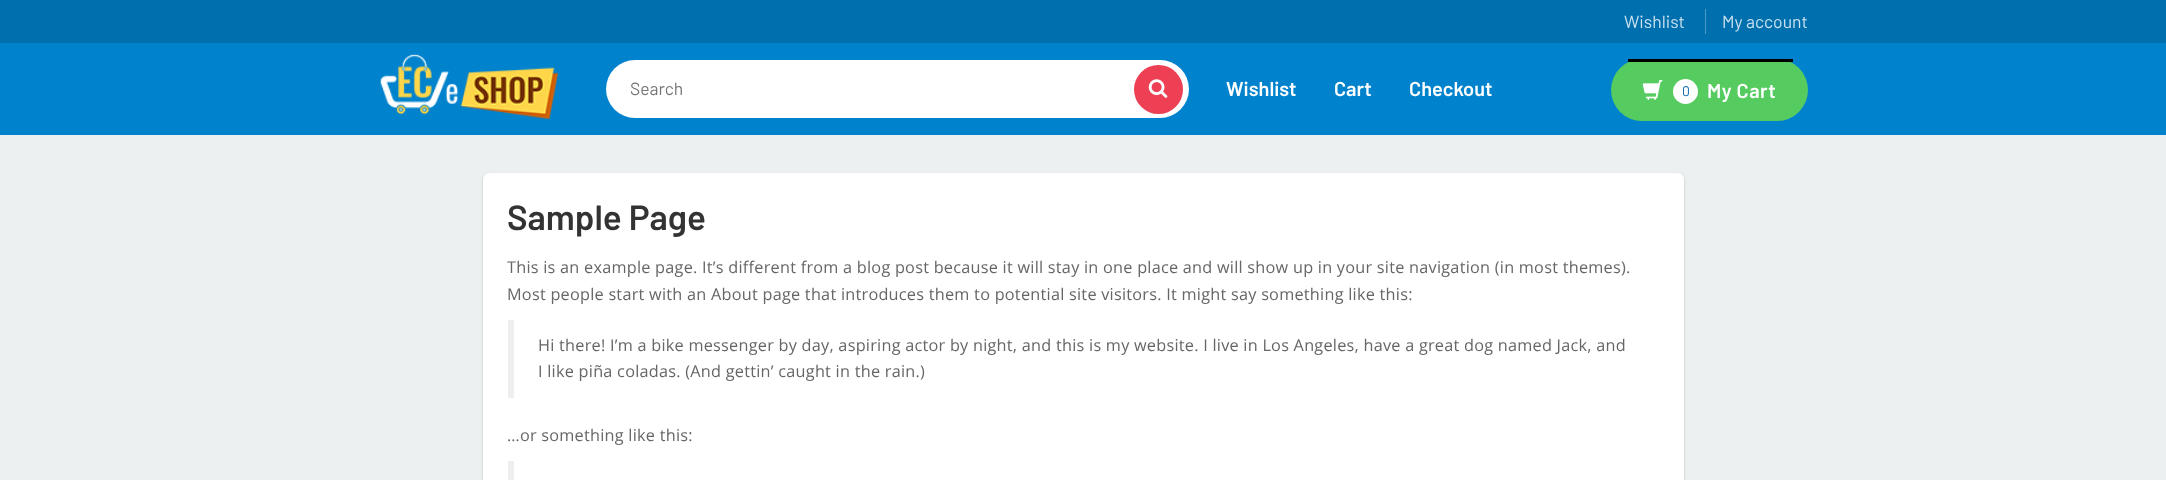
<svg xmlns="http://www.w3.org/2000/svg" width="2166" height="480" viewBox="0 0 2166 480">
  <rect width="100%" height="100%" fill="#ecf0f1"/>
  <path d="M0 0h2166v43H0z" fill="#006fae"/>
  <path d="M1705 9h1v25H1705z" fill="#4d9ac6"/>
  <path d="M0 43h2166v92H0z" fill="#0082cd"/>
  <image x="380" y="54" width="178" height="65" href="img/1.png"/>
  <rect x="606" y="60" width="583" height="58" rx="29" fill="#fff"/>
  <circle cx="1158.5" cy="89.5" r="24.5" fill="#ee4054"/>
  <image x="1148" y="79" width="20" height="19" href="img/2.png"/>
  <rect x="1611" y="59" width="197" height="62" rx="31" fill="#56cb60"/>
  <path d="M1628 59h165v3H1628z" fill="#000"/>
  <image x="1642" y="80" width="21" height="20" href="img/3.png"/>
  <circle cx="1685.5" cy="91.5" r="12.5" fill="#fff"/>
  <rect x="483" y="174" width="1201" height="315" rx="6" fill="#bbb" filter="blur(1px)"/>
  <rect x="483" y="173" width="1201" height="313" rx="6" fill="#fff"/>
  <path d="M508 320h6v78H508z" fill="#eee"/>
  <path d="M508 461h6v19H508z" fill="#eee"/>
  <g font-family="Barlow" font-size="17.5" fill="#cce2ef">
    <text x="1624" y="28">Wishlist</text>
    <text x="1722" y="28">My account</text>
  </g>
  <text x="630" y="95" font-family="Barlow" font-size="17.5" fill="#757575">Search</text>
  <g font-family="Barlow" font-size="20" font-weight="600" fill="#fff">
    <text x="1226" y="96">Wishlist</text>
    <text x="1334" y="96">Cart</text>
    <text x="1409" y="96">Checkout</text>
  </g>
  <text x="1682" y="96" font-family="Barlow" font-size="14" fill="#0f6cb2">0</text>
  <text x="1707" y="98" font-family="Barlow" font-size="20" font-weight="600" letter-spacing="0.5" fill="#fff">My Cart</text>
  <text x="507" y="230" font-family="Barlow" font-size="35" font-weight="600" fill="#333">Sample Page</text>
  <g font-family="Open Sans" font-size="16.25" letter-spacing="0.25" fill="#666">
    <text x="507" y="273">This is an example page. It’s different from a blog post because it will stay in one place and will show up in your site navigation (in most themes).</text>
    <text x="507" y="300">Most people start with an About page that introduces them to potential site visitors. It might say something like this:</text>
    <text x="538" y="351">Hi there! I’m a bike messenger by day, aspiring actor by night, and this is my website. I live in Los Angeles, have a great dog named Jack, and</text>
    <text x="538" y="377">I like piña coladas. (And gettin’ caught in the rain.)</text>
    <text x="507" y="441">…or something like this:</text>
  </g>
</svg>
